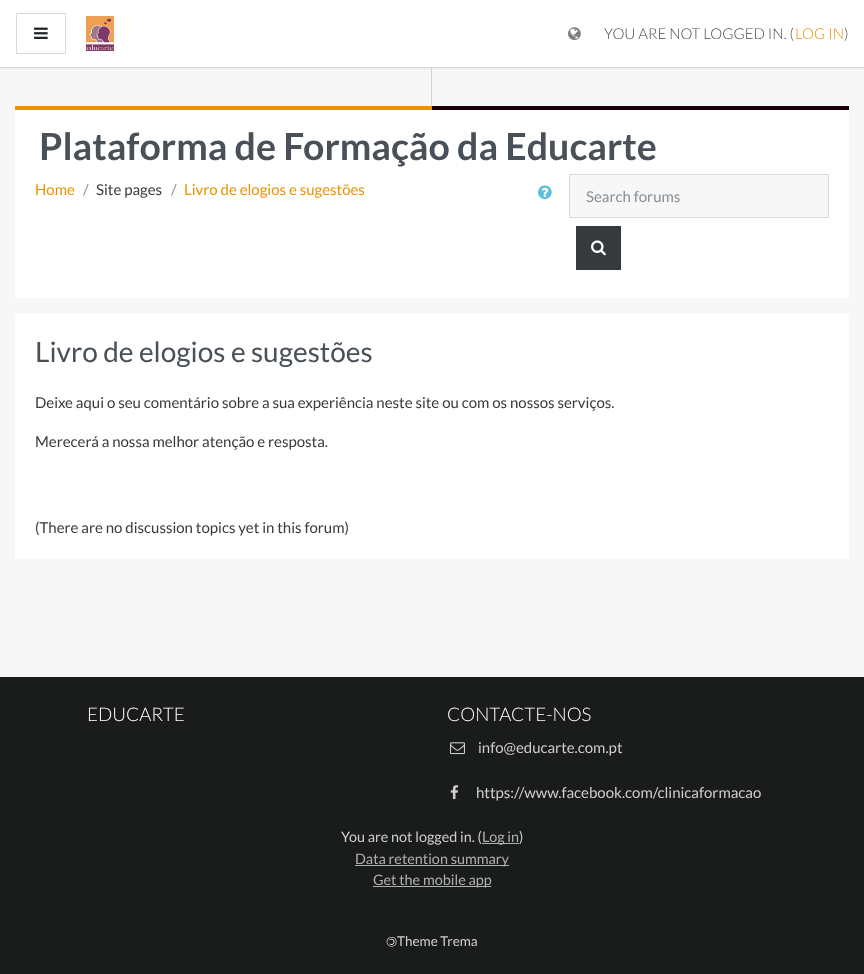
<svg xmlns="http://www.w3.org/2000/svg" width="864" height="974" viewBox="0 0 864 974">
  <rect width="100%" height="100%" fill="#f7f7f7"/>
  <path d="M431 68h1v38H431z" fill="#d3d3d3"/>
  <path d="M0 1h864v68H0z" fill="#0000000d" filter="blur(1px)"/>
  <path d="M0 0h864v67H0z" fill="#fff"/>
  <path d="M0 67h864v1H0z" fill="#d8d8d8"/>
  <path d="M16.5 13.5h49v40H16.5z" fill="none" stroke="#d8d8d8"/>
  <image x="34" y="27" width="14" height="12" href="img/1.png"/>
  <image x="86" y="15" width="28" height="36" href="img/2.png"/>
  <image x="568" y="27" width="13" height="13" href="img/3.png"/>
  <path d="M15 110h834v188H15z" fill="#fff"/>
  <path d="M15 106h417v4H15z" fill="#ea9300"/>
  <path d="M432 106h417v4H432z" fill="#190008"/>
  <image x="538" y="185" width="14" height="15" href="img/4.png"/>
  <path d="M569.5 174.5h259v43H569.5z" fill="#f7f7f7" stroke="#d8d8d8"/>
  <path d="M576 226h45v44H576z" fill="#373a3c"/>
  <image x="591" y="240" width="15" height="16" href="img/5.png"/>
  <path d="M15 314h834v245H15z" fill="#fff"/>
  <path d="M0 677h864v297H0z" fill="#1a1c1b"/>
  <image x="450" y="742" width="15" height="13" href="img/6.png"/>
  <image x="450" y="785" width="9" height="15" href="img/7.png"/>
  <path d="M482 843h37v1H482z" fill="#afb1b0"/>
  <path d="M355 865h154v1H355z" fill="#afb1b0"/>
  <path d="M373 886h118v1H373z" fill="#afb1b0"/>
  <text x="604" y="39" font-family="Lato" font-size="15" font-weight="300" fill="#484b49">YOU ARE NOT LOGGED IN. (</text>
  <text x="795" y="39" font-family="Lato" font-size="15" font-weight="300" fill="#ea9300">LOG IN</text>
  <text x="844" y="39" font-family="Lato" font-size="15" font-weight="300" fill="#484b49">)</text>
  <text x="39" y="160" font-family="Lato" font-size="37.5" font-weight="bold" fill="#495057">Plataforma de Formação da Educarte</text>
  <text x="35" y="195" font-family="Lato" font-size="15" fill="#ea9300">Home</text>
  <text x="83" y="195" font-family="Lato" font-size="15" fill="#868e96">/</text>
  <text x="96" y="195" font-family="Lato" font-size="15" fill="#373a3c">Site pages</text>
  <text x="171" y="195" font-family="Lato" font-size="15" fill="#868e96">/</text>
  <text x="184" y="195" font-family="Lato" font-size="15" fill="#ea9300">Livro de elogios e sugestões</text>
  <text x="586" y="202" font-family="Lato" font-size="15" fill="#868e96">Search forums</text>
  <text x="35" y="362" font-family="Lato" font-size="28" fill="#495057">Livro de elogios e sugestões</text>
  <g font-family="Lato" font-size="15" fill="#373a3c">
    <text x="35" y="408">Deixe aqui o seu comentário sobre a sua experiência neste site ou com os nossos serviços.</text>
    <text x="35" y="447">Merecerá a nossa melhor atenção e resposta.</text>
    <text x="35" y="533">(There are no discussion topics yet in this forum)</text>
  </g>
  <g font-family="Lato" font-size="18.75" font-weight="300" fill="#fff">
    <text x="87" y="721">EDUCARTE</text>
    <text x="447" y="721">CONTACTE-NOS</text>
  </g>
  <g font-family="Lato" font-size="15" fill="#cdcece">
    <text x="478" y="753">info@educarte.com.pt</text>
    <text x="476" y="798">https://www.facebook.com/clinicaformacao</text>
  </g>
  <text x="341" y="842" font-family="Lato" font-size="14.4" fill="#cdcece">You are not logged in. (</text>
  <text x="482" y="842" font-family="Lato" font-size="14.4" fill="#afb1b0">Log in</text>
  <text x="519" y="842" font-family="Lato" font-size="14.4" fill="#cdcece">)</text>
  <g font-family="Lato" font-size="14.4" fill="#afb1b0">
    <text x="355" y="864">Data retention summary</text>
    <text x="373" y="885">Get the mobile app</text>
  </g>
  <g font-family="Lato" font-size="13.5" fill="#cdcece">
    <text x="397" y="937" transform="rotate(180 397 937)">©</text>
    <text x="397" y="946">Theme Trema</text>
  </g>
</svg>
